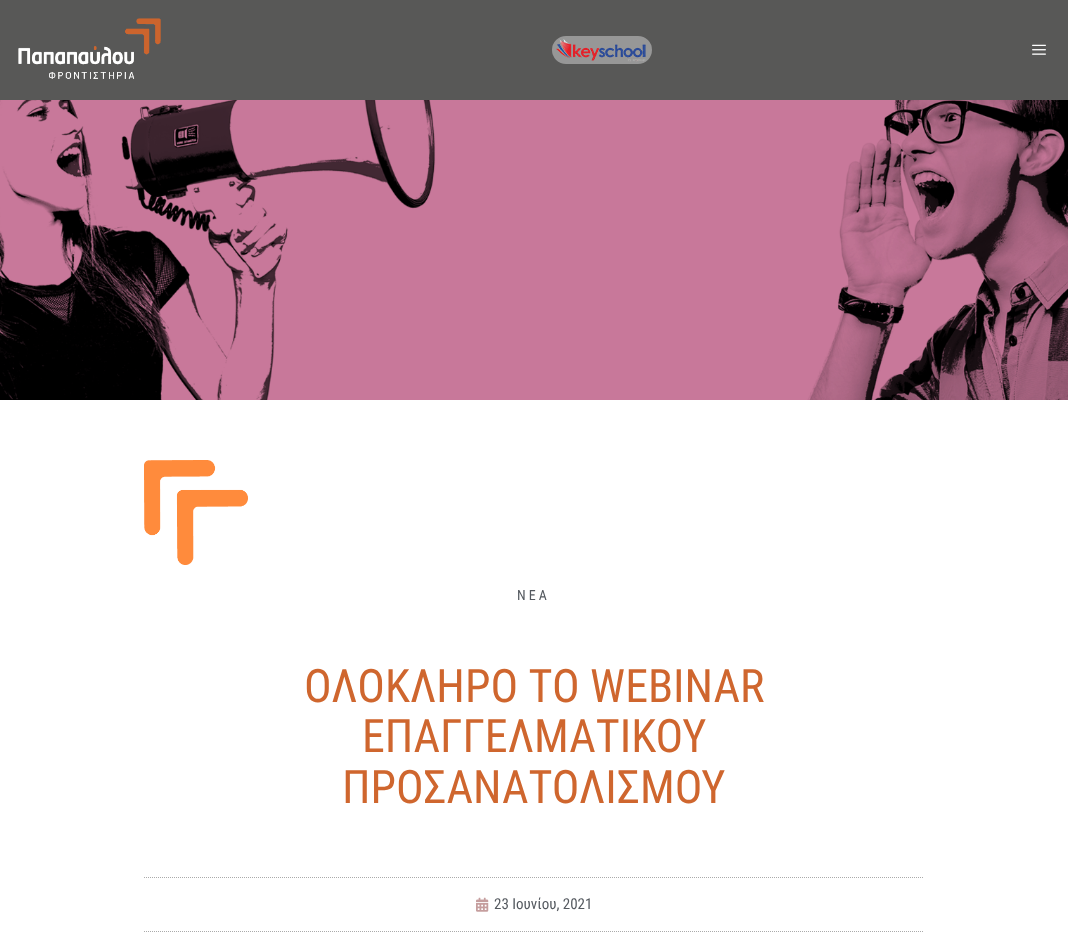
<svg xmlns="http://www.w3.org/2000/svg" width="1068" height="937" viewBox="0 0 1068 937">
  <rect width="100%" height="100%" fill="#fff"/>
  <path d="M0 0h1068v100H0z" fill="#585857"/>
  <image x="18" y="18" width="143" height="61" href="img/1.png"/>
  <rect x="552" y="36" width="100" height="28" rx="14" fill="#979797"/>
  <image x="556" y="39" width="90" height="23" href="img/2.png"/>
  <image x="1032" y="44" width="14" height="11" href="img/3.png"/>
  <image x="0" y="100" width="1068" height="300" href="img/4.png"/>
  <image x="144" y="460" width="104" height="105" href="img/5.png"/>
  <path d="M144 877.5H924" fill="none" stroke="#aaa" stroke-dasharray="1 1"/>
  <path d="M144 931.5H924" fill="none" stroke="#aaa" stroke-dasharray="1 1"/>
  <image x="476" y="897" width="13" height="15" href="img/6.png"/>
  <text x="517" y="600" font-family="Roboto Condensed" font-size="14" letter-spacing="3" fill="#54595f">ΝΕΑ</text>
  <g font-family="Roboto Condensed" font-size="46" fill="#cf662e">
    <text x="304" y="702">ΟΛΟΚΛΗΡΟ ΤΟ WEBINAR</text>
    <text x="362" y="752">ΕΠΑΓΓΕΛΜΑΤΙΚΟΥ</text>
    <text x="342" y="803">ΠΡΟΣΑΝΑΤΟΛΙΣΜΟΥ</text>
  </g>
  <text x="494" y="909" font-family="Roboto Condensed" font-size="15" fill="#54595f">23 Ιουνίου, 2021</text>
</svg>
